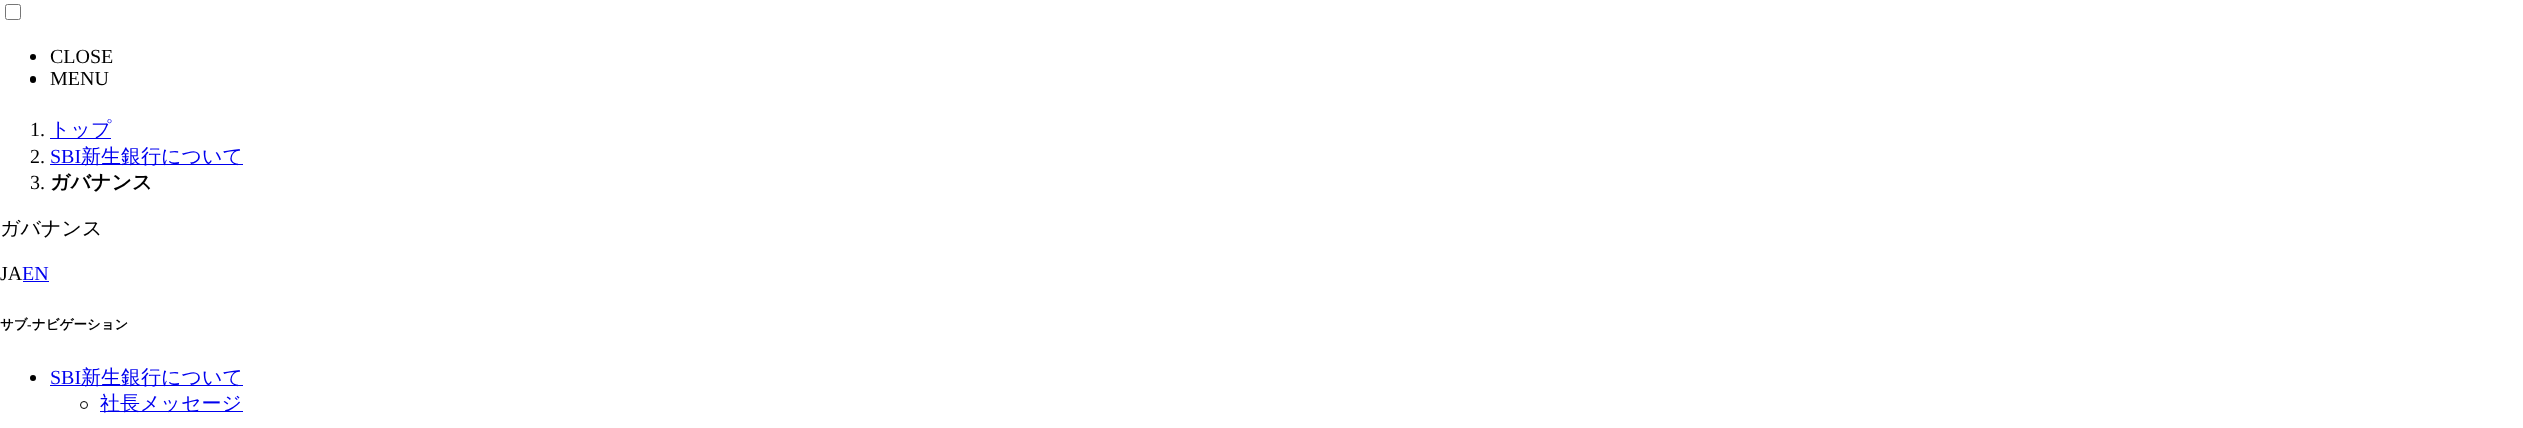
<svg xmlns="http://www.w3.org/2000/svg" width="2523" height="428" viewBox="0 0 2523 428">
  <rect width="100%" height="100%" fill="#fff"/>
  <rect x="5.5" y="4.5" width="15" height="15" rx="2" fill="none" stroke="#767676"/>
  <circle cx="33" cy="57" r="3" fill="#000"/>
  <rect x="30" y="76" width="6" height="7" rx="3" fill="#000"/>
  <path d="M50 138h61v1H50z" fill="#00e"/>
  <path d="M50 164h193v1H50z" fill="#00e"/>
  <path d="M23 281h26v1H23z" fill="#00e"/>
  <circle cx="33" cy="378" r="3" fill="#000"/>
  <path d="M50 385h193v1H50z" fill="#00e"/>
  <circle cx="84" cy="405" r="3.5" fill="none" stroke="#000"/>
  <path d="M100 411h143v1H100z" fill="#00e"/>
  <g font-family="Liberation Serif" font-size="20" fill="#000">
    <text x="50" y="63">CLOSE</text>
    <text x="50" y="85">MENU</text>
    <text x="30" y="136">1.</text>
  </g>
  <text x="50" y="136" font-family="WenQuanYi Zen Hei" font-size="20" font-weight="500" fill="#00e">トップ</text>
  <text x="30" y="163" font-family="Liberation Serif" font-size="20" fill="#000">2.</text>
  <text x="50" y="163" font-family="Liberation Serif" font-size="20" fill="#00e">SBI</text>
  <text x="81" y="163" font-family="WenQuanYi Zen Hei" font-size="20" font-weight="500" fill="#00e">新生銀行について</text>
  <text x="30" y="189" font-family="Liberation Serif" font-size="20" fill="#000">3.</text>
  <text x="50" y="189" font-family="WenQuanYi Zen Hei" font-size="20" font-weight="bold" fill="#000">ガバナンス</text>
  <text x="0" y="235" font-family="WenQuanYi Zen Hei" font-size="20" font-weight="500" fill="#000">ガバナンス</text>
  <text x="0" y="280" font-family="Liberation Serif" font-size="20" fill="#000">JA</text>
  <text x="22" y="280" font-family="Liberation Serif" font-size="20" fill="#00e">EN</text>
  <text x="0" y="329" font-family="WenQuanYi Zen Hei" font-size="13.5" font-weight="bold" fill="#000">サブ</text>
  <text x="27" y="329" font-family="Liberation Serif" font-size="13.5" font-weight="bold" fill="#000">-</text>
  <text x="32" y="329" font-family="WenQuanYi Zen Hei" font-size="13.5" font-weight="bold" fill="#000">ナビゲーション</text>
  <text x="50" y="384" font-family="Liberation Serif" font-size="20" fill="#00e">SBI</text>
  <g font-family="WenQuanYi Zen Hei" font-size="20" font-weight="500" fill="#00e">
    <text x="81" y="384">新生銀行について</text>
    <text x="100" y="410">社長メッセージ</text>
  </g>
</svg>
